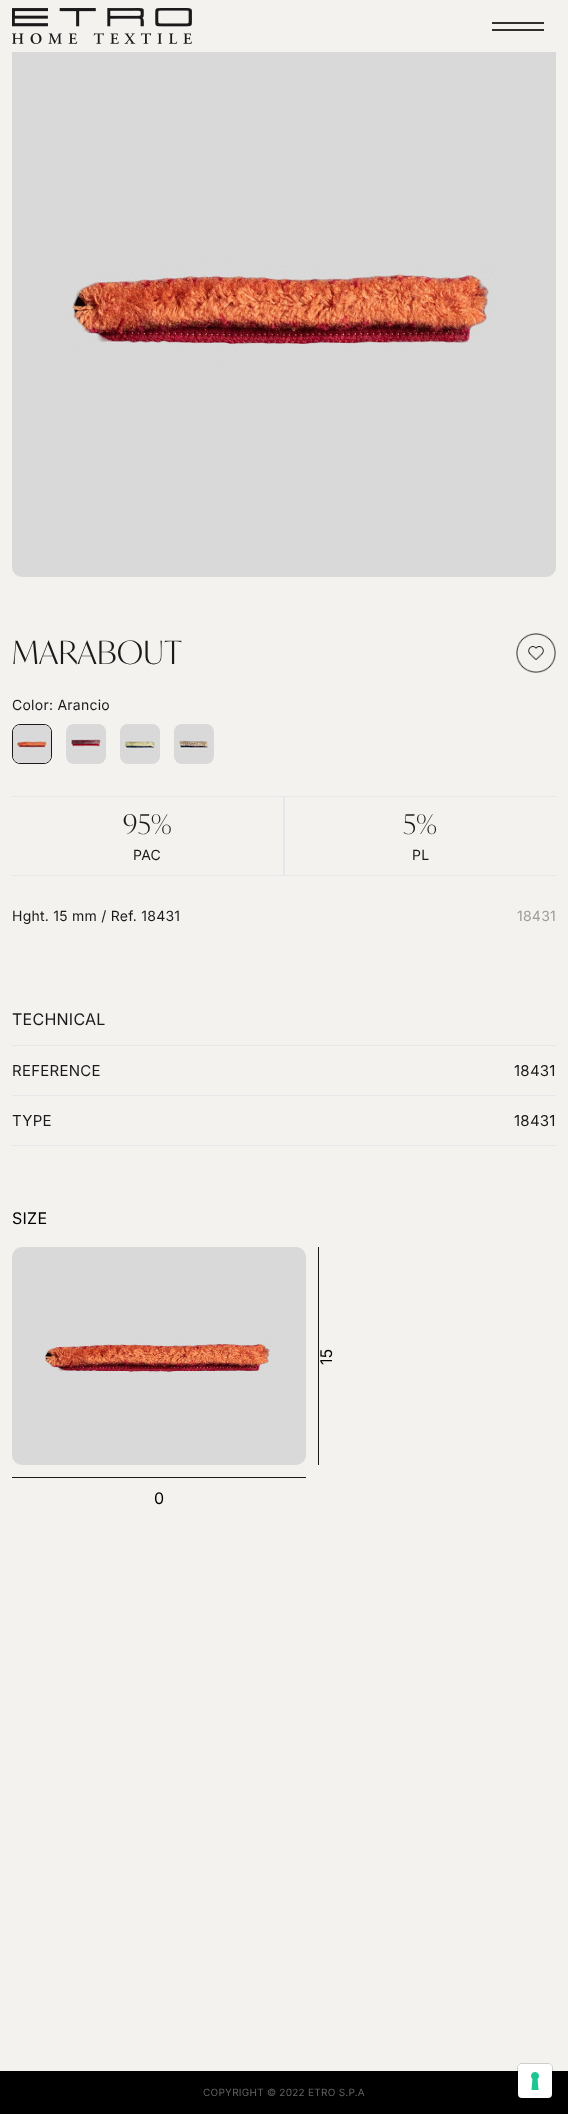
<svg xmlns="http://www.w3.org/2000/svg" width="568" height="2114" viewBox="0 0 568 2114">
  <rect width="100%" height="100%" fill="#000"/>
  <path d="M0 0h568v2071H0z" fill="#f4f2ef"/>
  <image x="12" y="8" width="180" height="36" href="img/1.png"/>
  <path d="M492 22h52v2H492z" fill="#30302f"/>
  <path d="M492 29h52v2H492z" fill="#30302f"/>
  <image x="12" y="52" width="544" height="525" href="img/2.png"/>
  <image x="516" y="633" width="40" height="40" href="img/3.png"/>
  <rect x="12.5" y="724.5" width="39" height="39" rx="7.5" fill="none" stroke="#1a1a1a"/>
  <image x="13" y="725" width="38" height="38" href="img/4.png"/>
  <image x="66" y="724" width="40" height="40" href="img/5.png"/>
  <image x="120" y="724" width="40" height="40" href="img/6.png"/>
  <image x="174" y="724" width="40" height="40" href="img/7.png"/>
  <path d="M12 796h544v1H12z" fill="#e5e7eb"/>
  <path d="M12 875h544v1H12z" fill="#e5e7eb"/>
  <path d="M283 797h2v78H283z" fill="#e5e7eb"/>
  <path d="M12 1145h544v1H12z" fill="#e5e7eb"/>
  <path d="M12 1045h544v1H12z" fill="#e5e7eb"/>
  <path d="M12 1095h544v1H12z" fill="#e5e7eb"/>
  <image x="12" y="1247" width="294" height="218" href="img/8.png"/>
  <path d="M318 1247h1v218H318z" fill="#1a1a1a"/>
  <path d="M12 1477h294v1H12z" fill="#1a1a1a"/>
  <rect x="517.5" y="2063.5" width="35" height="35" rx="4.5" fill="none" stroke="#00000026"/>
  <rect x="518" y="2064" width="34" height="34" rx="4" fill="#fff"/>
  <image x="531" y="2072" width="8" height="18" href="img/9.png"/>
  <text x="12" y="664" font-family="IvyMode" font-size="32" font-weight="300" letter-spacing="0.25" fill="#1a1a1a">MARABOUT</text>
  <text x="12" y="710" font-family="Inter" font-size="14" letter-spacing="0.25" fill="#1a1a1a">Color: Arancio</text>
  <text x="123" y="834" font-family="IvyMode" font-size="27" font-weight="300" letter-spacing="0.25" fill="#1a1a1a">95%</text>
  <text x="133" y="860" font-family="Inter" font-size="14" letter-spacing="0.25" fill="#1a1a1a">PAC</text>
  <text x="403" y="834" font-family="IvyMode" font-size="27" font-weight="300" letter-spacing="0.25" fill="#1a1a1a">5%</text>
  <g font-family="Inter" font-size="14" letter-spacing="0.25" fill="#1a1a1a">
    <text x="412" y="860">PL</text>
    <text x="12" y="921">Hght. 15 mm / Ref. 18431</text>
  </g>
  <text x="517" y="921" font-family="Inter" font-size="14" letter-spacing="0.25" fill="#9d9c9a">18431</text>
  <text x="12" y="1025" font-family="Inter" font-size="16" letter-spacing="0.25" fill="#1a1a1a">TECHNICAL</text>
  <g font-family="Inter" font-size="15" letter-spacing="0.25" fill="#1a1a1a">
    <text x="12" y="1076">REFERENCE</text>
    <text x="514" y="1076">18431</text>
    <text x="12" y="1126">TYPE</text>
    <text x="514" y="1126">18431</text>
  </g>
  <g font-family="Inter" font-size="16" letter-spacing="0.25" fill="#000">
    <text x="12" y="1224">SIZE</text>
    <text x="332" y="1365" transform="rotate(-90 332 1365)">15</text>
    <text x="154" y="1504">0</text>
  </g>
  <text x="203" y="2096" font-family="Inter" font-size="10" letter-spacing="0.25" fill="#626160">COPYRIGHT © 2022 ETRO S.P.A</text>
</svg>
